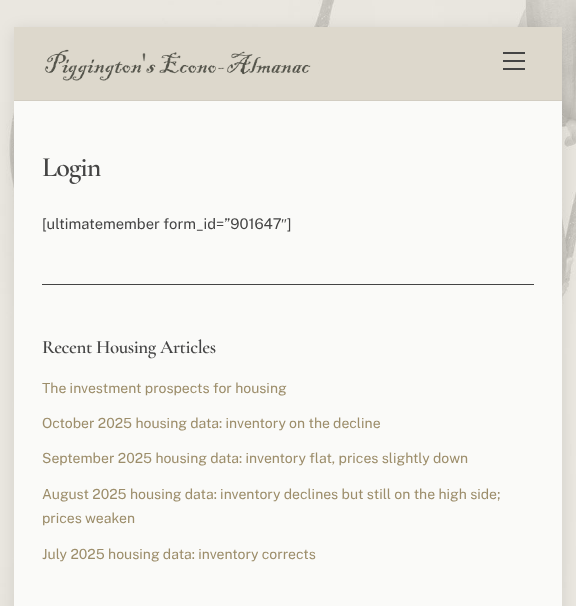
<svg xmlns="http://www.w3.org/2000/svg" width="576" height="606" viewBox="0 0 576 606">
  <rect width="100%" height="100%" fill="#fff"/>
  <image x="0" y="0" width="576" height="606" href="img/1.png"/>
  <path d="M14 30h548v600H14z" fill="#0000001a" filter="blur(8px)"/>
  <path d="M14 27h548v73H14z" fill="#ddd8cc"/>
  <path d="M14 100h548v1H14z" fill="#d2cdc2"/>
  <image x="44" y="49" width="267" height="32" href="img/2.png"/>
  <path d="M503 68h22v2H503z" fill="#444"/>
  <path d="M503 52h22v2H503z" fill="#444"/>
  <path d="M503 60h22v2H503z" fill="#444"/>
  <path d="M14 101h548v505H14z" fill="#fafaf8"/>
  <path d="M42 284h492v1H42z" fill="#444"/>
  <text x="42" y="176" font-family="Cormorant Garamond" font-size="28" font-weight="600" letter-spacing="-1" fill="#444">Login</text>
  <text x="42" y="229" font-family="Public Sans" font-size="14.75" fill="#444">[ultimatemember form_id=”901647</text>
  <text x="281" y="229" font-family="Liberation Serif" font-size="14.75" fill="#444">″</text>
  <text x="287" y="229" font-family="Public Sans" font-size="14.75" fill="#444">]</text>
  <text x="42" y="353" font-family="Cormorant Garamond" font-size="18.9" font-weight="600" letter-spacing="-0.4" fill="#444">Recent Housing Articles</text>
  <g font-family="Public Sans" font-size="14" fill="#9c8d6a">
    <text x="42" y="393">The investment prospects for housing</text>
    <text x="42" y="428">October 2025 housing data: inventory on the decline</text>
    <text x="42" y="463">September 2025 housing data: inventory flat, prices slightly down</text>
    <text x="42" y="499">August 2025 housing data: inventory declines but still on the high side;</text>
    <text x="42" y="523">prices weaken</text>
    <text x="42" y="559">July 2025 housing data: inventory corrects</text>
  </g>
</svg>
